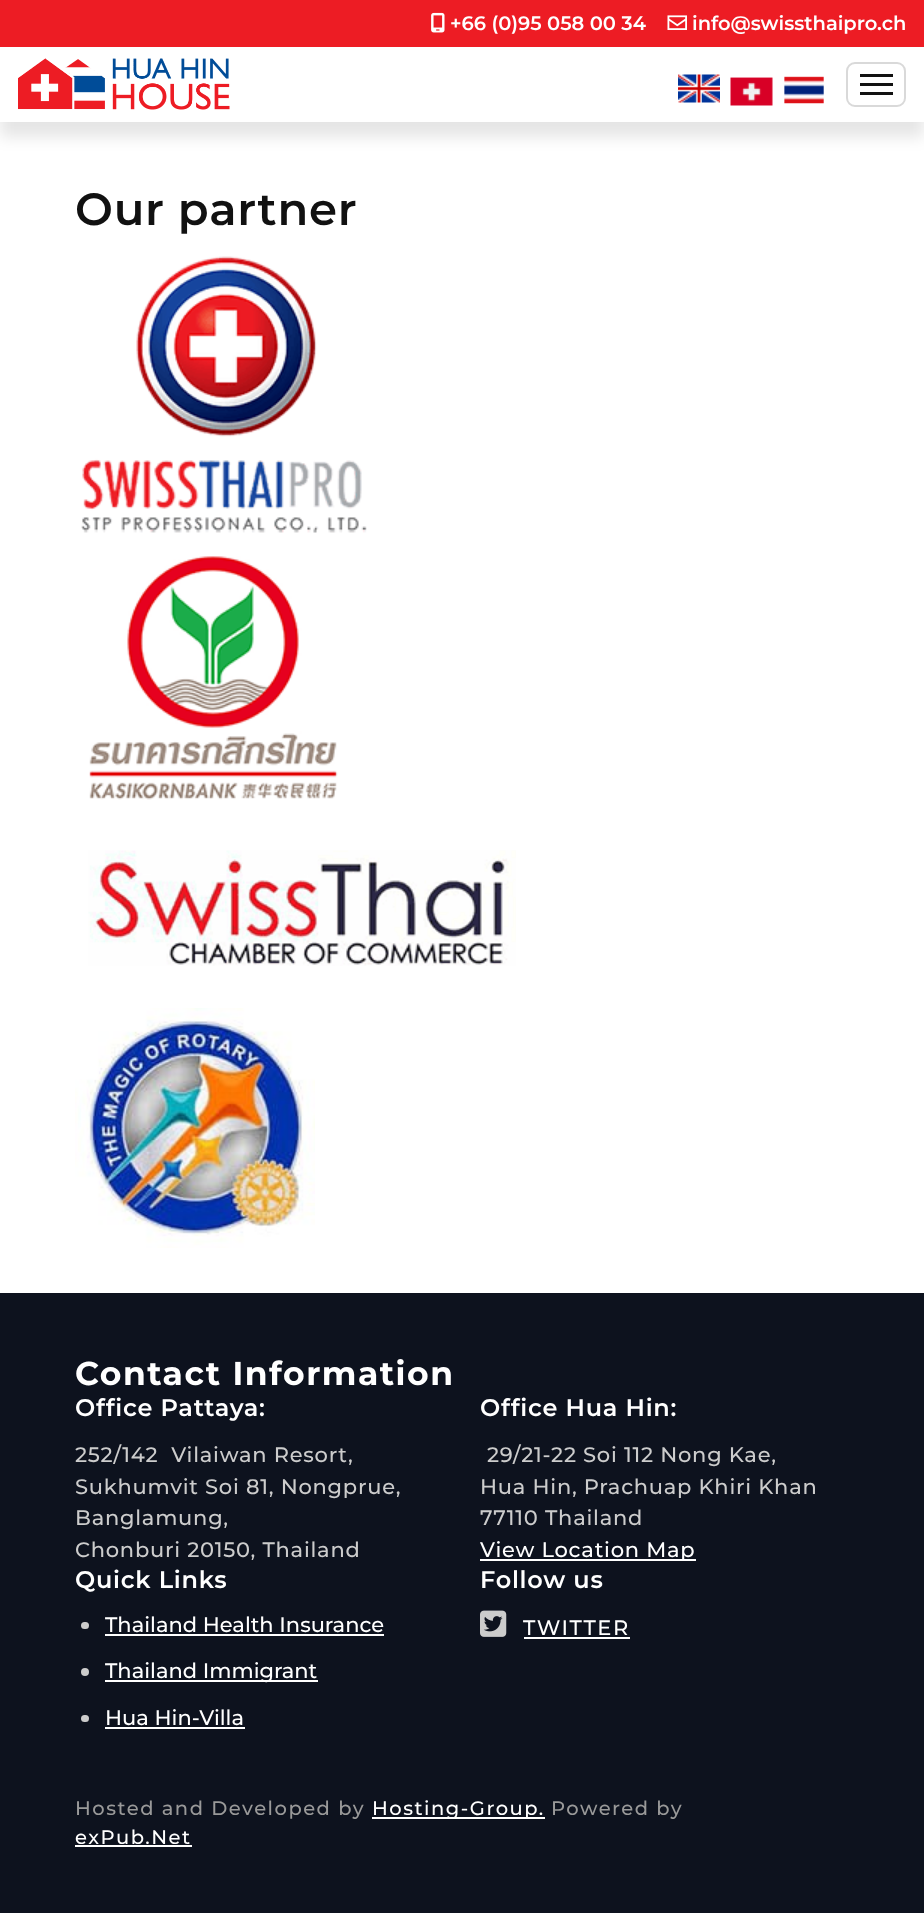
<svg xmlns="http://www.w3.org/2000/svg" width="924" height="1921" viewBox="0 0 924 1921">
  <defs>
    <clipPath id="clip1"><path d="M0 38H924V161H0ZM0 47H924V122H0Z" clip-rule="evenodd"/></clipPath>
  </defs>
  <rect width="100%" height="100%" fill="#fff"/>
  <path d="M0 0h924v47H0z" fill="#ed1c24"/>
  <image x="431" y="12" width="14" height="21" href="img/1.png"/>
  <image x="667" y="15" width="20" height="15" href="img/2.png"/>
  <g clip-path="url(#clip1)">
    <path d="M0 62h924v75H0z" fill="#0000001a" filter="blur(7.5px)"/>
  </g>
  <image x="18" y="58" width="212" height="52" href="img/3.png"/>
  <image x="678" y="74" width="42" height="29" href="img/4.png"/>
  <image x="730" y="77" width="43" height="29" href="img/5.png"/>
  <image x="784" y="76" width="40" height="28" href="img/6.png"/>
  <rect x="847" y="63" width="58" height="43" rx="8" fill="none" stroke="#d9d9d9" stroke-width="2"/>
  <path d="M860 74h33v3H860z" fill="#111"/>
  <path d="M860 83h33v3H860z" fill="#111"/>
  <path d="M860 92h33v3H860z" fill="#111"/>
  <image x="81" y="256" width="286" height="277" href="img/7.png"/>
  <image x="89" y="556" width="249" height="244" href="img/8.png"/>
  <image x="88" y="850" width="428" height="116" href="img/9.png"/>
  <image x="75" y="1008" width="240" height="240" href="img/10.png"/>
  <path d="M0 1293h924v620H0z" fill="#0d121e"/>
  <path d="M480 1559h216v2H480z" fill="#fff"/>
  <rect x="81" y="1622" width="8" height="7" rx="3.5" fill="#ccc"/>
  <path d="M105 1634h279v2H105z" fill="#fff"/>
  <circle cx="85" cy="1672" r="4" fill="#ccc"/>
  <path d="M105 1680h213v2H105z" fill="#fff"/>
  <rect x="81" y="1715" width="8" height="7" rx="3.5" fill="#ccc"/>
  <path d="M105 1727h140v2H105z" fill="#fff"/>
  <image x="480" y="1610" width="27" height="27" href="img/11.png"/>
  <path d="M524 1637h106v2H524z" fill="#fff"/>
  <path d="M372 1817h173v2H372z" fill="#fff"/>
  <path d="M75 1845h117v2H75z" fill="#fff"/>
  <g font-family="Montserrat" font-size="19.5" font-weight="600" fill="#fff">
    <text x="450" y="30">+66 (0)95 058 00 34</text>
    <text x="692" y="30">info@swissthaipro.ch</text>
  </g>
  <text x="75" y="225" font-family="Montserrat" font-size="45" font-weight="600" letter-spacing="0.75" fill="#111">Our partner</text>
  <text x="75" y="1385" font-family="Montserrat" font-size="33" font-weight="bold" letter-spacing="1.5" fill="#fff">Contact Information</text>
  <text x="75" y="1416" font-family="Montserrat" font-size="24" font-weight="600" letter-spacing="0.75" fill="#fff">Office Pattaya:</text>
  <g font-family="Montserrat" font-size="21" font-weight="500" letter-spacing="0.75" fill="#ccc">
    <text x="75" y="1462" xml:space="preserve">252/142  Vilaiwan Resort,</text>
    <text x="75" y="1494">Sukhumvit Soi 81, Nongprue,</text>
    <text x="75" y="1525">Banglamung,</text>
    <text x="75" y="1557">Chonburi 20150, Thailand</text>
  </g>
  <text x="480" y="1416" font-family="Montserrat" font-size="24" font-weight="600" letter-spacing="0.75" fill="#fff">Office Hua Hin:</text>
  <g font-family="Montserrat" font-size="21" font-weight="500" letter-spacing="0.75" fill="#ccc">
    <text x="487" y="1462">29/21-22 Soi 112 Nong Kae,</text>
    <text x="480" y="1494">Hua Hin, Prachuap Khiri Khan</text>
    <text x="480" y="1525">77110 Thailand</text>
  </g>
  <text x="480" y="1557" font-family="Montserrat" font-size="21" font-weight="500" letter-spacing="0.75" fill="#fff">View Location Map</text>
  <text x="75" y="1588" font-family="Montserrat" font-size="24" font-weight="600" letter-spacing="0.75" fill="#fff">Quick Links</text>
  <g font-family="Montserrat" font-size="21" font-weight="500" fill="#fff">
    <text x="105" y="1632">Thailand Health Insurance</text>
    <text x="105" y="1678">Thailand Immigrant</text>
    <text x="105" y="1725">Hua Hin-Villa</text>
  </g>
  <text x="480" y="1588" font-family="Montserrat" font-size="24" font-weight="600" letter-spacing="0.75" fill="#fff">Follow us</text>
  <text x="523" y="1635" font-family="Montserrat" font-size="21" font-weight="500" letter-spacing="1.5" fill="#fff">TWITTER</text>
  <text x="75" y="1815" font-family="Montserrat" font-size="19.5" font-weight="500" letter-spacing="1.5" fill="#999">Hosted and Developed by</text>
  <text x="372" y="1815" font-family="Montserrat" font-size="19.5" font-weight="500" letter-spacing="1.5" fill="#fff">Hosting-Group.</text>
  <text x="551" y="1815" font-family="Montserrat" font-size="19.5" font-weight="500" letter-spacing="1.5" fill="#999">Powered by</text>
  <text x="75" y="1844" font-family="Montserrat" font-size="19.5" font-weight="500" letter-spacing="1.5" fill="#fff">exPub.Net</text>
</svg>
